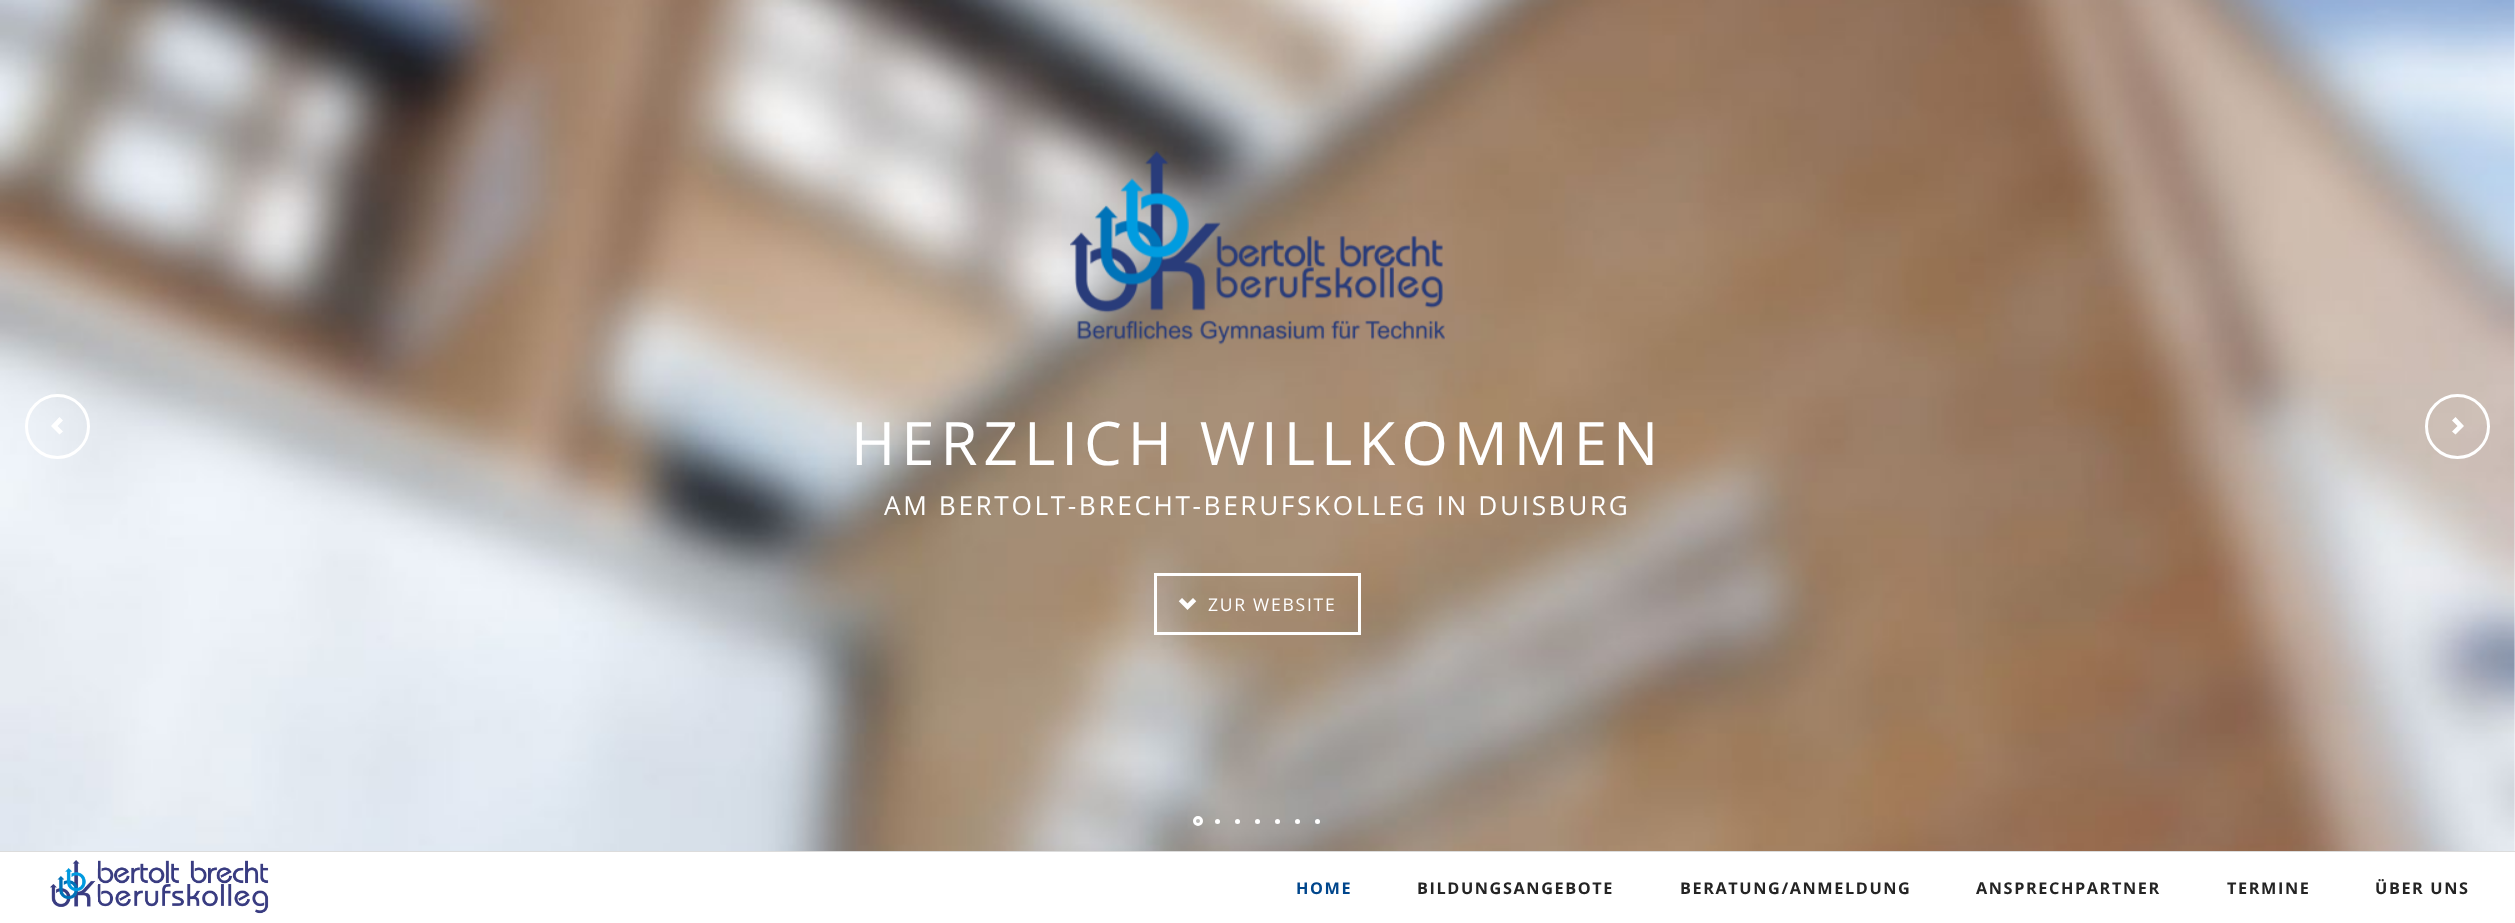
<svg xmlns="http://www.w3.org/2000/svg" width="2515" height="923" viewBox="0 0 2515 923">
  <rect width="100%" height="100%" fill="#fff"/>
  <image x="0" y="0" width="2515" height="851" href="img/1.png"/>
  <circle cx="57.5" cy="426.5" r="31" fill="none" stroke="#fff" stroke-width="3"/>
  <path d="M59.5 434.5L63 431.5L57.5 426L63 420.5L59.5 417L51 426Z" fill="#fff"/>
  <image x="1070" y="151" width="375" height="194" href="img/2.png"/>
  <path d="M1155.5 574.5h204v59H1155.5z" fill="none" stroke="#fff" stroke-width="3"/>
  <image x="1178" y="598" width="19" height="12" href="img/3.png"/>
  <circle cx="2457.5" cy="426.5" r="31" fill="none" stroke="#fff" stroke-width="3"/>
  <path d="M2455.5 417L2452 420.5L2457.5 426L2452 431.5L2455.5 434.5L2464 426Z" fill="#fff"/>
  <circle cx="1198" cy="821" r="3.5" fill="#ffffff40" stroke="#fff" stroke-width="3"/>
  <circle cx="1217.5" cy="821.5" r="2.5" fill="#fff"/>
  <circle cx="1237.5" cy="821.5" r="2.5" fill="#fff"/>
  <circle cx="1257.5" cy="821.5" r="2.5" fill="#fff"/>
  <circle cx="1277.5" cy="821.5" r="2.5" fill="#fff"/>
  <circle cx="1297.5" cy="821.5" r="2.5" fill="#fff"/>
  <circle cx="1317.5" cy="821.5" r="2.5" fill="#fff"/>
  <path d="M0 851h2515v1H0z" fill="#dcdcdc"/>
  <image x="50" y="860" width="219" height="54" href="img/4.png"/>
  <text x="851" y="465" font-family="Open Sans" font-size="60" letter-spacing="6" fill="#fff">HERZLICH WILLKOMMEN</text>
  <text x="884" y="515" font-family="Open Sans" font-size="26.25" letter-spacing="2.6" fill="#fff">AM BERTOLT-BRECHT-BERUFSKOLLEG IN DUISBURG</text>
  <text x="1208" y="611" font-family="Open Sans" font-size="17.5" letter-spacing="1.75" fill="#fff">ZUR WEBSITE</text>
  <text x="1296" y="894" font-family="Open Sans" font-size="16.25" font-weight="bold" letter-spacing="1.6" fill="#00468c">HOME</text>
  <g font-family="Open Sans" font-size="16.25" font-weight="bold" letter-spacing="1.6" fill="#242424">
    <text x="1417" y="894">BILDUNGSANGEBOTE</text>
    <text x="1680" y="894">BERATUNG/ANMELDUNG</text>
    <text x="1976" y="894">ANSPRECHPARTNER</text>
    <text x="2227" y="894">TERMINE</text>
    <text x="2375" y="894">ÜBER UNS</text>
  </g>
</svg>
